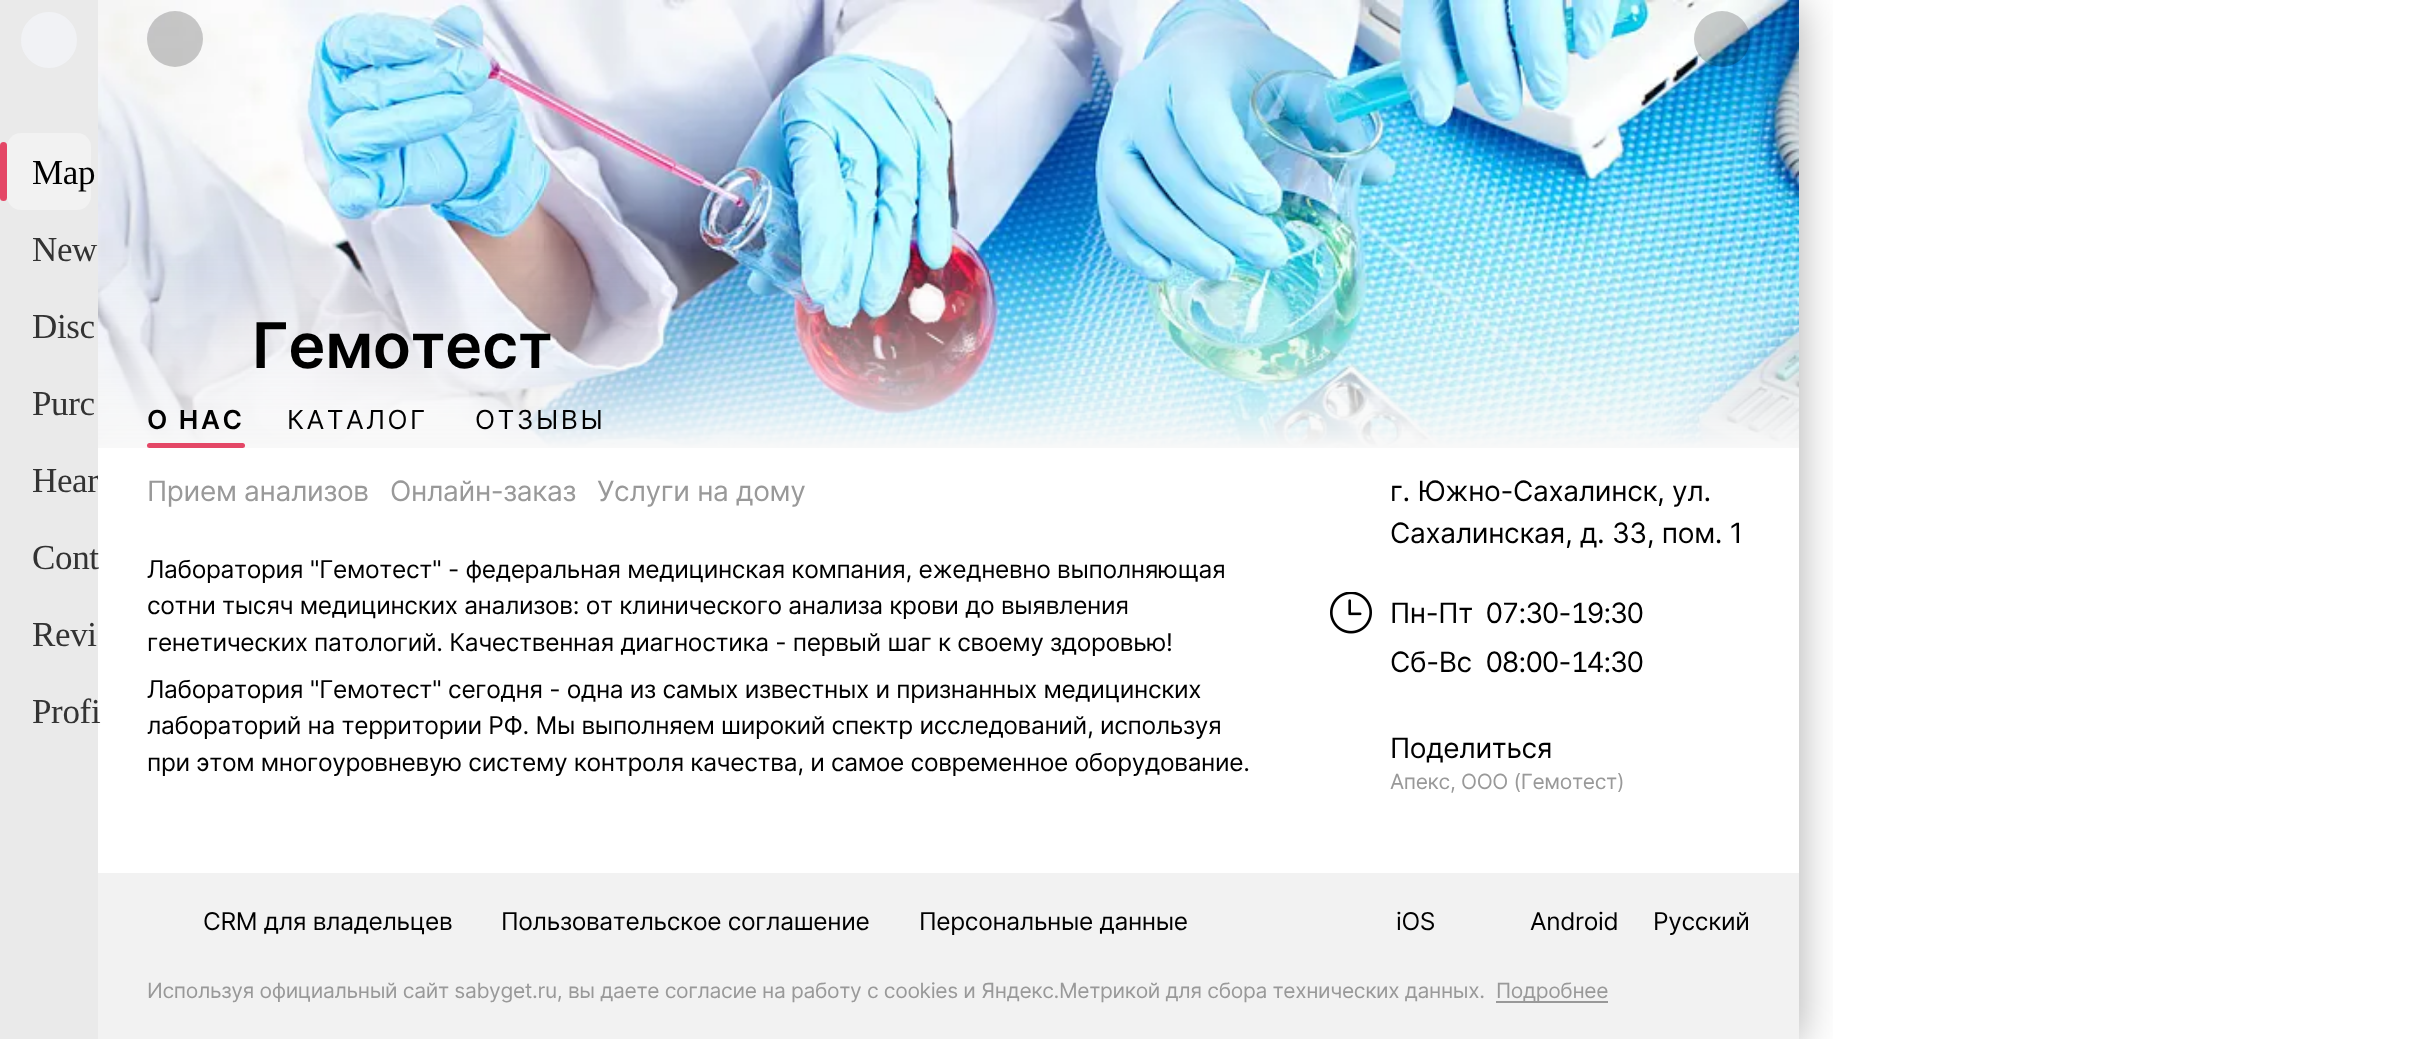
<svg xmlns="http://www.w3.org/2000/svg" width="2435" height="1039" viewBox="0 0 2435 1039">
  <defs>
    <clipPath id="clip1"><path d="M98 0h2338v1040H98z"/></clipPath>
    <clipPath id="clip2"><path d="M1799 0h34v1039H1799z"/></clipPath>
    <clipPath id="clip3"><path d="M0 133h98v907H0z"/></clipPath>
  </defs>
  <rect width="100%" height="100%" fill="#fff"/>
  <path d="M0 0h98v1039H0z" fill="#eaeaea"/>
  <circle cx="49" cy="40" r="27" fill="#f1f2f5" stroke="#f1f2f5" stroke-width="2"/>
  <rect y="142" width="7" height="59" rx="3.5" fill="#e44766"/>
  <rect x="7" y="133" width="84" height="77" rx="14" fill="#f2f2f2"/>
  <g clip-path="url(#clip1)">
    <g clip-path="url(#clip2)">
      <path d="M98 4h1701v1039H98z" fill="#00000054" filter="blur(22px)"/>
    </g>
  </g>
  <image x="98" y="0" width="1701" height="448" href="img/1.png"/>
  <circle cx="175" cy="39" r="28" fill="#00000033"/>
  <circle cx="1722" cy="39" r="28" fill="#00000033"/>
  <rect x="147" y="443" width="98" height="5" rx="2.5" fill="#e44766"/>
  <image x="1330" y="592" width="42" height="42" href="img/2.png"/>
  <path d="M98 873h1701v166H98z" fill="#f2f2f2"/>
  <path d="M1496 1001h112v2H1496z" fill="#999"/>
  <text x="32" y="184" font-family="Liberation Serif" font-size="35" letter-spacing="-0.35" fill="#000">Map</text>
  <g font-family="Liberation Serif" font-size="35" letter-spacing="-0.35" fill="#333">
    <text x="32" y="261">New</text>
    <text x="32" y="338">Disc</text>
    <text x="32" y="415">Purc</text>
  </g>
  <g clip-path="url(#clip3)">
    <text x="32" y="492" font-family="Liberation Serif" font-size="35" letter-spacing="-0.35" fill="#333">Hear</text>
  </g>
  <g font-family="Liberation Serif" font-size="35" letter-spacing="-0.35" fill="#333">
    <text x="32" y="569">Cont</text>
    <text x="32" y="646">Revi</text>
    <text x="32" y="723">Profi</text>
  </g>
  <text x="252" y="368" font-family="Inter" font-size="63" font-weight="600" letter-spacing="-0.35" fill="#000">Гемотест</text>
  <text x="147" y="429" font-family="Inter" font-size="26.25" font-weight="600" letter-spacing="2.5" fill="#000">О НАС</text>
  <g font-family="Inter" font-size="26.25" letter-spacing="2.5" fill="#000">
    <text x="287" y="429">КАТАЛОГ</text>
    <text x="475" y="429">ОТЗЫВЫ</text>
  </g>
  <g font-family="Inter" font-size="28" letter-spacing="-0.35" fill="#999">
    <text x="147" y="501">Прием анализов</text>
    <text x="390" y="501">Онлайн-заказ</text>
    <text x="597" y="501">Услуги на дому</text>
  </g>
  <g font-family="Inter" font-size="24.5" letter-spacing="-0.35" fill="#000">
    <text x="147" y="578">Лаборатория "Гемотест" - федеральная медицинская компания, ежедневно выполняющая</text>
    <text x="147" y="614">сотни тысяч медицинских анализов: от клинического анализа крови до выявления</text>
    <text x="147" y="651">генетических патологий. Качественная диагностика - первый шаг к своему здоровью!</text>
    <text x="147" y="698">Лаборатория "Гемотест" сегодня - одна из самых известных и признанных медицинских</text>
    <text x="147" y="734">лабораторий на территории РФ. Мы выполняем широкий спектр исследований, используя</text>
    <text x="147" y="771">при этом многоуровневую систему контроля качества, и самое современное оборудование.</text>
  </g>
  <g font-family="Inter" font-size="28" letter-spacing="-0.35" fill="#000">
    <text x="1390" y="501">г. Южно-Сахалинск, ул.</text>
    <text x="1390" y="543">Сахалинская, д. 33, пом. 1</text>
    <text x="1390" y="623">Пн-Пт</text>
  </g>
  <text x="1486" y="623" font-family="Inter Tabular" font-size="28" letter-spacing="-0.35" fill="#000">07:30-19:30</text>
  <text x="1390" y="672" font-family="Inter" font-size="28" letter-spacing="-0.35" fill="#000">Сб-Вс</text>
  <text x="1486" y="672" font-family="Inter Tabular" font-size="28" letter-spacing="-0.35" fill="#000">08:00-14:30</text>
  <text x="1390" y="758" font-family="Inter" font-size="28" letter-spacing="-0.35" fill="#000">Поделиться</text>
  <text x="1390" y="789" font-family="Inter" font-size="21" letter-spacing="-0.35" fill="#999">Апекс, ООО (Гемотест)</text>
  <g font-family="Inter" font-size="24.5" letter-spacing="-0.35" fill="#000">
    <text x="203" y="930">CRM для владельцев</text>
    <text x="501" y="930">Пользовательское соглашение</text>
    <text x="919" y="930">Персональные данные</text>
    <text x="1396" y="930">iOS</text>
    <text x="1530" y="930">Android</text>
    <text x="1653" y="930">Русский</text>
  </g>
  <g font-family="Inter" font-size="21" letter-spacing="-0.35" fill="#999">
    <text x="147" y="998">Используя официальный сайт sabyget.ru, вы даете согласие на работу с cookies и Яндекс.Метрикой для сбора технических данных.</text>
    <text x="1496" y="998">Подробнее</text>
  </g>
</svg>
